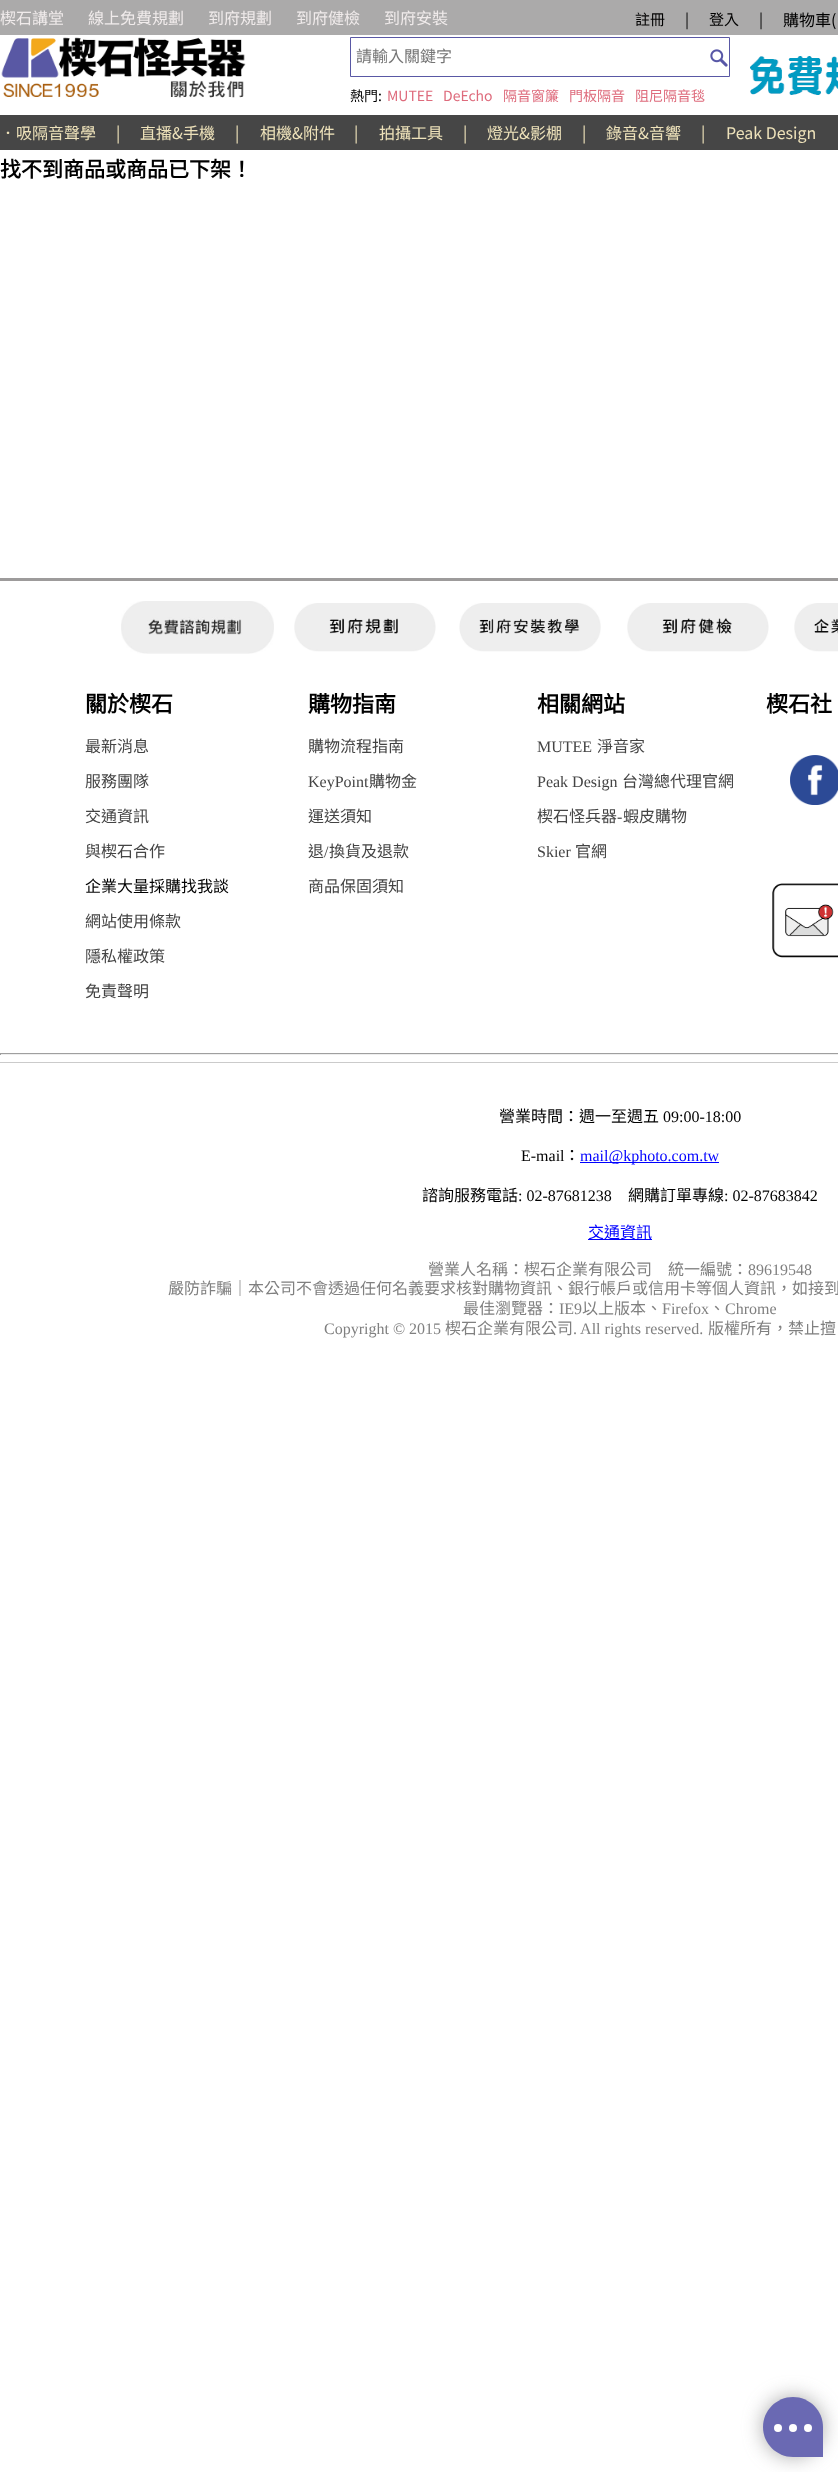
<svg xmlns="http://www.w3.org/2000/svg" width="838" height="2472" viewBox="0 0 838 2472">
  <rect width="100%" height="100%" fill="#fff"/>
  <path d="M0 0h838v35H0z" fill="#abaaaa"/>
  <image x="1" y="37" width="245" height="41" href="img/1.png"/>
  <image x="3" y="80" width="241" height="18" href="img/2.png"/>
  <path d="M350.5 37.5h379v39H350.5z" fill="none" stroke="#5958a5"/>
  <image x="710" y="49" width="18" height="18" href="img/3.png"/>
  <image x="750" y="56" width="88" height="39" href="img/4.png"/>
  <path d="M0 115h838v35H0z" fill="#464646"/>
  <path d="M0 578h838v3H0z" fill="#9d9b9b"/>
  <image x="121" y="601" width="153" height="53" href="img/5.png"/>
  <image x="294" y="603" width="142" height="49" href="img/6.png"/>
  <image x="459" y="603" width="142" height="49" href="img/7.png"/>
  <image x="627" y="603" width="142" height="49" href="img/8.png"/>
  <image x="794" y="603" width="44" height="49" href="img/9.png"/>
  <image x="790" y="755" width="48" height="50" href="img/10.png"/>
  <image x="772" y="883" width="66" height="75" href="img/11.png"/>
  <path d="M0 1053h838v1H0z" fill="#9f9f9f"/>
  <path d="M0 1054h838v1H0z" fill="#eee"/>
  <path d="M0 1053h1v2H0z" fill="#9f9f9f"/>
  <path d="M0 1062h838v1H0z" fill="#cbcbcb"/>
  <path d="M580 1162h139v1H580z" fill="#00f"/>
  <path d="M588 1239h64v1H588z" fill="#00f"/>
  <rect x="763" y="2397" width="60" height="60" rx="30" fill="#777777a3" filter="blur(10px)"/>
  <path d="M793 2397C809.5 2397 823 2410.5 823 2427V2457H793C776.5 2457 763 2443.5 763 2427C763 2410.5 776.5 2397 793 2397Z" fill="#6a69b3"/>
  <circle cx="778" cy="2428" r="4" fill="#fff"/>
  <circle cx="793" cy="2428" r="4" fill="#fff"/>
  <circle cx="808" cy="2428" r="4" fill="#fff"/>
  <g font-family="Noto Sans TC" font-size="16" font-weight="100" fill="#f0ebeb">
    <text x="0" y="24">楔石講堂</text>
    <text x="88" y="24">線上免費規劃</text>
    <text x="208" y="24">到府規劃</text>
    <text x="296" y="24">到府健檢</text>
    <text x="384" y="24">到府安裝</text>
  </g>
  <g font-family="Noto Sans TC" font-size="15" font-weight="100" fill="#000">
    <text x="635" y="25">註冊</text>
    <text x="685" y="25">|</text>
    <text x="709" y="25">登入</text>
    <text x="759" y="25">|</text>
  </g>
  <text x="783" y="26" font-family="Noto Sans TC" font-size="16" font-weight="100" fill="#000">購物車(</text>
  <text x="356" y="62" font-family="Noto Sans CJK TC" font-size="16" fill="#757575">請輸入關鍵字</text>
  <text x="350" y="101" font-family="Noto Sans TC" font-size="14" font-weight="100" fill="#000">熱門:</text>
  <g font-family="Noto Sans TC" font-size="14" font-weight="100" fill="#de6b7c">
    <text x="387" y="101">MUTEE</text>
    <text x="443" y="101">DeEcho</text>
    <text x="503" y="101">隔音窗簾</text>
    <text x="569" y="101">門板隔音</text>
    <text x="635" y="101">阻尼隔音毯</text>
  </g>
  <g font-family="Noto Sans TC" font-size="16" font-weight="100" fill="#eee2ba">
    <text x="0" y="139">．吸隔音聲學</text>
    <text x="116" y="139">|</text>
    <text x="140" y="139">直播&amp;手機</text>
    <text x="235" y="139">|</text>
    <text x="260" y="139">相機&amp;附件</text>
    <text x="354" y="139">|</text>
    <text x="379" y="139">拍攝工具</text>
    <text x="463" y="139">|</text>
    <text x="487" y="139">燈光&amp;影棚</text>
    <text x="582" y="139">|</text>
    <text x="606" y="139">錄音&amp;音響</text>
    <text x="701" y="139">|</text>
    <text x="726" y="139">Peak Design</text>
  </g>
  <text x="0" y="177" font-family="Noto Sans CJK TC" font-size="21" font-weight="bold" fill="#000">找不到商品或商品已下架！</text>
  <g font-family="Noto Sans CJK TC" font-size="22" font-weight="bold" fill="#000">
    <text x="85" y="712">關於楔石</text>
    <text x="308" y="712">購物指南</text>
    <text x="537" y="712">相關網站</text>
    <text x="766" y="712">楔石社</text>
  </g>
  <g font-family="Noto Sans CJK TC" font-size="16" fill="#444">
    <text x="85" y="752">最新消息</text>
    <text x="308" y="752">購物流程指南</text>
  </g>
  <text x="537" y="752" font-family="Liberation Serif" font-size="16" fill="#444">MUTEE</text>
  <g font-family="Noto Sans CJK TC" font-size="16" fill="#444">
    <text x="597" y="752">淨音家</text>
    <text x="85" y="787">服務團隊</text>
  </g>
  <text x="308" y="787" font-family="Liberation Serif" font-size="16" fill="#444">KeyPoint</text>
  <text x="369" y="787" font-family="Noto Sans CJK TC" font-size="16" fill="#444">購物金</text>
  <text x="537" y="787" font-family="Liberation Serif" font-size="16" fill="#444">Peak Design</text>
  <g font-family="Noto Sans CJK TC" font-size="16" fill="#444">
    <text x="622" y="787">台灣總代理官網</text>
    <text x="85" y="822">交通資訊</text>
    <text x="308" y="822">運送須知</text>
    <text x="537" y="822">楔石怪兵器</text>
  </g>
  <text x="617" y="822" font-family="Liberation Serif" font-size="16" fill="#444">-</text>
  <g font-family="Noto Sans CJK TC" font-size="16" fill="#444">
    <text x="623" y="822">蝦皮購物</text>
    <text x="85" y="857">與楔石合作</text>
    <text x="308" y="857">退</text>
  </g>
  <text x="324" y="857" font-family="Liberation Serif" font-size="16" fill="#444">/</text>
  <text x="329" y="857" font-family="Noto Sans CJK TC" font-size="16" fill="#444">換貨及退款</text>
  <text x="537" y="857" font-family="Liberation Serif" font-size="16" fill="#444">Skier</text>
  <text x="575" y="857" font-family="Noto Sans CJK TC" font-size="16" fill="#444">官網</text>
  <text x="85" y="892" font-family="Noto Sans CJK TC" font-size="16" fill="#000">企業大量採購找我談</text>
  <g font-family="Noto Sans CJK TC" font-size="16" fill="#444">
    <text x="308" y="892">商品保固須知</text>
    <text x="85" y="927">網站使用條款</text>
    <text x="85" y="962">隱私權政策</text>
    <text x="85" y="997">免責聲明</text>
  </g>
  <text x="499" y="1122" font-family="Noto Sans CJK TC" font-size="16" fill="#000">營業時間：週一至週五</text>
  <g font-family="Liberation Serif" font-size="16" fill="#000">
    <text x="663" y="1122">09:00-18:00</text>
    <text x="521" y="1161">E-mail</text>
  </g>
  <text x="564" y="1161" font-family="Noto Sans CJK TC" font-size="16" fill="#000">：</text>
  <text x="580" y="1161" font-family="Liberation Serif" font-size="16" fill="#00f">mail@kphoto.com.tw</text>
  <text x="422" y="1201" font-family="Noto Sans CJK TC" font-size="16" fill="#000">諮詢服務電話</text>
  <text x="518" y="1201" font-family="Liberation Serif" font-size="16" fill="#000">: 02-87681238</text>
  <text x="628" y="1201" font-family="Noto Sans CJK TC" font-size="16" fill="#000">網購訂單專線</text>
  <text x="724" y="1201" font-family="Liberation Serif" font-size="16" fill="#000">: 02-87683842</text>
  <text x="588" y="1238" font-family="Noto Sans CJK TC" font-size="16" fill="#00f">交通資訊</text>
  <text x="428" y="1275" font-family="Noto Sans CJK TC" font-size="16" fill="#808080">營業人名稱：楔石企業有限公司　統一編號：</text>
  <text x="748" y="1275" font-family="Liberation Serif" font-size="16" fill="#808080">89619548</text>
  <g font-family="Noto Sans CJK TC" font-size="16" fill="#808080">
    <text x="168" y="1294">嚴防詐騙｜本公司不會透過任何名義要求核對購物資訊、銀行帳戶或信用卡等個人資訊，如接到</text>
    <text x="463" y="1314">最佳瀏覽器：</text>
  </g>
  <text x="559" y="1314" font-family="Liberation Serif" font-size="16" fill="#808080">IE9</text>
  <text x="582" y="1314" font-family="Noto Sans CJK TC" font-size="16" fill="#808080">以上版本、</text>
  <text x="662" y="1314" font-family="Liberation Serif" font-size="16" fill="#808080">Firefox</text>
  <text x="709" y="1314" font-family="Noto Sans CJK TC" font-size="16" fill="#808080">、</text>
  <g font-family="Liberation Serif" font-size="16" fill="#808080">
    <text x="725" y="1314">Chrome</text>
    <text x="324" y="1334">Copyright © 2015</text>
  </g>
  <text x="445" y="1334" font-family="Noto Sans CJK TC" font-size="16" fill="#808080">楔石企業有限公司</text>
  <text x="573" y="1334" font-family="Liberation Serif" font-size="16" fill="#808080">. All rights reserved.</text>
  <text x="708" y="1334" font-family="Noto Sans CJK TC" font-size="16" fill="#808080">版權所有，禁止擅</text>
</svg>
